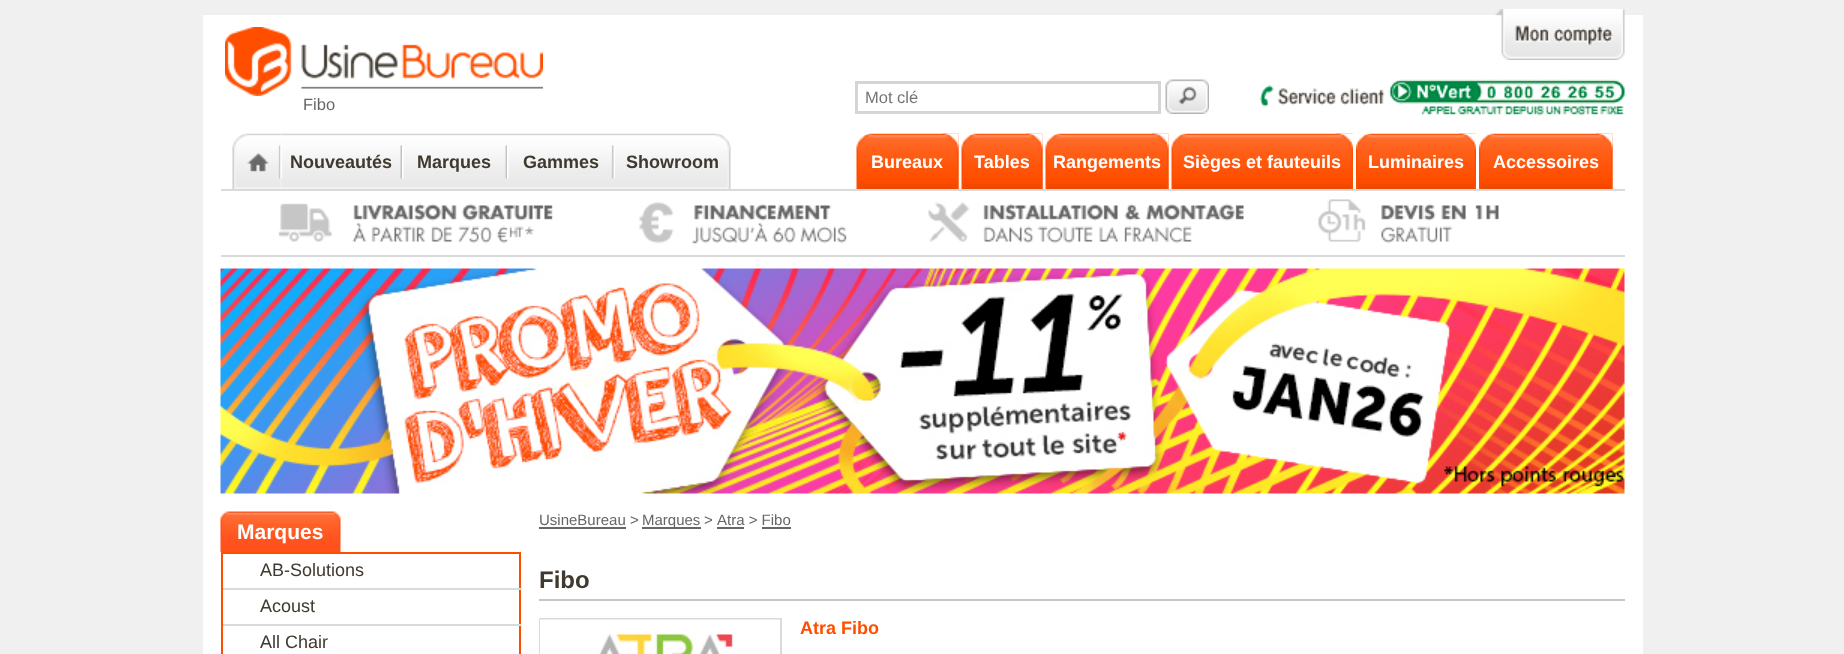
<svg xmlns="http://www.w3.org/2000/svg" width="1844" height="654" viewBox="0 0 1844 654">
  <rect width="100%" height="100%" fill="#f0f0f0"/>
  <path d="M203 15h1440v639H203z" fill="#fff"/>
  <image x="225" y="27" width="318" height="69" href="img/1.png"/>
  <image x="1495" y="9" width="130" height="51" href="img/2.png"/>
  <path d="M856.5 82.5h303v30H856.5z" fill="none" stroke="#d5d5d5" stroke-width="3"/>
  <image x="1165" y="79" width="44" height="35" href="img/3.png"/>
  <image x="1260" y="79" width="365" height="37" href="img/4.png"/>
  <path d="M221 189h1404v2H221z" fill="#dadada"/>
  <image x="232" y="133" width="49" height="56" href="img/5.png"/>
  <image x="280" y="133" width="122" height="56" href="img/6.png"/>
  <image x="402" y="133" width="105" height="56" href="img/7.png"/>
  <image x="507" y="133" width="108" height="56" href="img/8.png"/>
  <image x="615" y="133" width="116" height="56" href="img/9.png"/>
  <image x="856" y="133" width="103" height="56" href="img/10.png"/>
  <image x="942" y="133" width="17" height="56" href="img/11.png"/>
  <image x="961" y="133" width="82" height="56" href="img/12.png"/>
  <image x="1026" y="133" width="17" height="56" href="img/13.png"/>
  <image x="1045" y="133" width="124" height="56" href="img/14.png"/>
  <image x="1152" y="133" width="17" height="56" href="img/13.png"/>
  <image x="1171" y="133" width="182" height="56" href="img/15.png"/>
  <image x="1336" y="133" width="17" height="56" href="img/16.png"/>
  <image x="1356" y="133" width="120" height="56" href="img/17.png"/>
  <image x="1459" y="133" width="17" height="56" href="img/16.png"/>
  <image x="1479" y="133" width="134" height="56" href="img/18.png"/>
  <image x="1596" y="133" width="17" height="56" href="img/11.png"/>
  <path d="M221 255h1404v2H221z" fill="#dadada"/>
  <image x="278" y="203" width="275" height="41" href="img/19.png"/>
  <image x="639" y="202" width="208" height="42" href="img/20.png"/>
  <image x="928" y="202" width="316" height="42" href="img/21.png"/>
  <image x="1318" y="199" width="181" height="45" href="img/22.png"/>
  <image x="220" y="268" width="1405" height="226" href="img/23.png"/>
  <image x="324" y="511" width="17" height="41" href="img/24.png"/>
  <image x="220" y="511" width="104" height="41" href="img/25.png"/>
  <path d="M221 552h300v2H221z" fill="#ff4e00"/>
  <path d="M519 554h2v100H519z" fill="#ff4e00"/>
  <path d="M221 588h300v2H221z" fill="#dadada"/>
  <path d="M221 554h2v36H221z" fill="#ff4e00"/>
  <path d="M221 624h300v2H221z" fill="#dadada"/>
  <path d="M221 590h2v64H221z" fill="#ff4e00"/>
  <path d="M539 527h87v2H539z" fill="#666"/>
  <path d="M642 527h59v2H642z" fill="#666"/>
  <path d="M717 527h27v2H717z" fill="#666"/>
  <path d="M762 527h29v2H762z" fill="#666"/>
  <path d="M539 599h1086v2H539z" fill="#c6c6c6"/>
  <path d="M540 619h241v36H540z" fill="none" stroke="#dadada" stroke-width="2"/>
  <image x="540" y="619" width="240" height="35" href="img/26.png"/>
  <text x="303" y="110" font-family="Liberation Sans" font-size="16.5" fill="#666">Fibo</text>
  <text x="865" y="103" font-family="Liberation Sans" font-size="16.5" fill="#757575">Mot clé</text>
  <g font-family="Liberation Sans" font-size="18" font-weight="bold" fill="#3f392f">
    <text x="290" y="168">Nouveautés</text>
    <text x="417" y="168">Marques</text>
    <text x="523" y="168">Gammes</text>
    <text x="626" y="168">Showroom</text>
  </g>
  <g font-family="Liberation Sans" font-size="18" font-weight="bold" fill="#fff">
    <text x="871" y="168">Bureaux</text>
    <text x="974" y="168">Tables</text>
    <text x="1053" y="168">Rangements</text>
    <text x="1183" y="168">Sièges et fauteuils</text>
    <text x="1368" y="168">Luminaires</text>
    <text x="1493" y="168">Accessoires</text>
  </g>
  <text x="237" y="539" font-family="Liberation Sans" font-size="21" font-weight="bold" fill="#fff">Marques</text>
  <g font-family="Liberation Sans" font-size="18" fill="#3f392f">
    <text x="260" y="576">AB-Solutions</text>
    <text x="260" y="612">Acoust</text>
    <text x="260" y="648">All Chair</text>
  </g>
  <g font-family="Liberation Sans" font-size="15" fill="#666">
    <text x="539" y="525">UsineBureau &gt;</text>
    <text x="642" y="525">Marques</text>
    <text x="704" y="525">&gt;</text>
    <text x="717" y="525">Atra &gt; Fibo</text>
  </g>
  <text x="539" y="588" font-family="Liberation Sans" font-size="24" font-weight="bold" fill="#3f392f">Fibo</text>
  <text x="800" y="634" font-family="Liberation Sans" font-size="18" font-weight="bold" fill="#ff4e00">Atra Fibo</text>
</svg>
